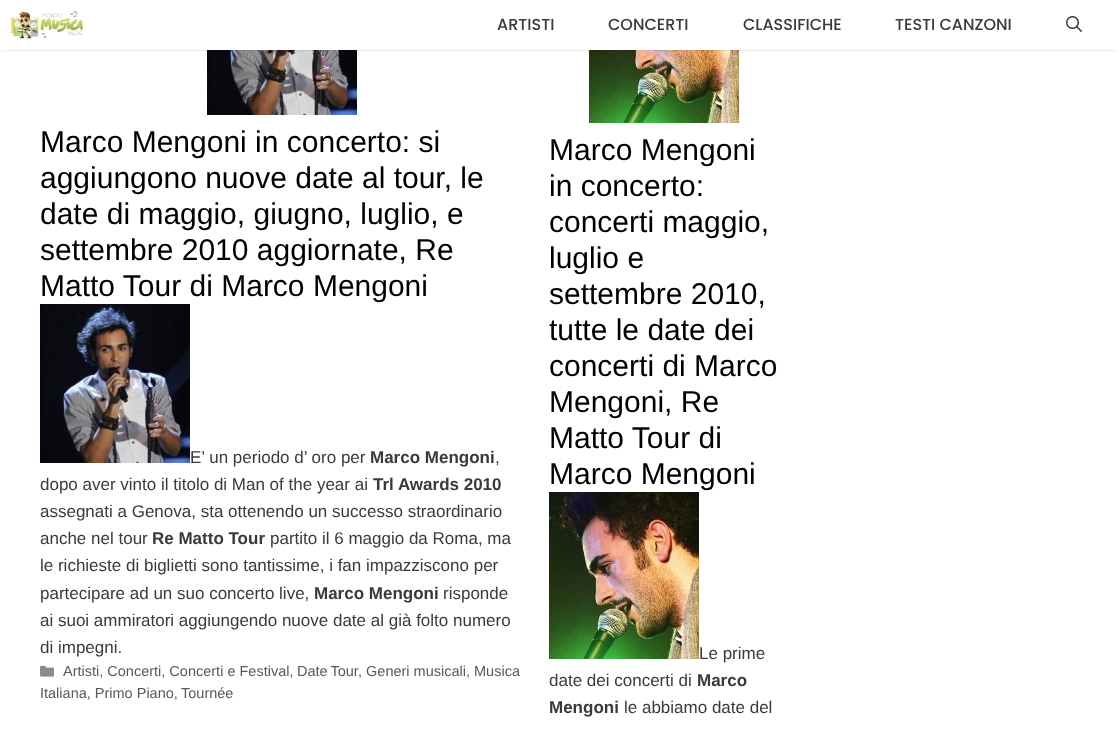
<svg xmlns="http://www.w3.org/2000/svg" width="1119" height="731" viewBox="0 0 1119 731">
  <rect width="100%" height="100%" fill="#fff"/>
  <image x="207" y="50" width="150" height="65" href="img/3.png"/>
  <image x="589" y="50" width="150" height="73" href="img/6.png"/>
  <path d="M2 4h1115v46H2z" fill="#00000033" filter="blur(1px)"/>
  <path d="M0 2h1119v48H0z" fill="#fff"/>
  <image x="11" y="10" width="72" height="29" href="img/1.png"/>
  <image x="1066" y="16" width="16" height="16" href="img/2.png"/>
  <image x="40" y="304" width="150" height="159" href="img/4.png"/>
  <image x="40" y="665" width="14" height="12" href="img/5.png"/>
  <image x="549" y="492" width="150" height="167" href="img/7.png"/>
  <g font-family="Poppins" font-size="16" font-weight="500" fill="#3a3a3a">
    <text x="497" y="30">ARTISTI</text>
    <text x="608" y="30">CONCERTI</text>
    <text x="743" y="30">CLASSIFICHE</text>
    <text x="895" y="30">TESTI CANZONI</text>
  </g>
  <g font-family="Liberation Sans" font-size="30" fill="#000">
    <text x="40" y="152">Marco Mengoni in concerto: si</text>
    <text x="40" y="188">aggiungono nuove date al tour, le</text>
    <text x="40" y="224">date di maggio, giugno, luglio, e</text>
    <text x="40" y="260">settembre 2010 aggiornate, Re</text>
    <text x="40" y="296">Matto Tour di Marco Mengoni</text>
  </g>
  <text x="190" y="463" font-family="Liberation Sans" font-size="17" fill="#3a3a3a">E’ un periodo d’ oro per</text>
  <text x="370" y="463" font-family="Liberation Sans" font-size="17" font-weight="bold" fill="#3a3a3a">Marco Mengoni</text>
  <g font-family="Liberation Sans" font-size="17" fill="#3a3a3a">
    <text x="495" y="463">,</text>
    <text x="40" y="490">dopo aver vinto il titolo di Man of the year ai</text>
  </g>
  <text x="373" y="490" font-family="Liberation Sans" font-size="17" font-weight="bold" fill="#3a3a3a">Trl Awards 2010</text>
  <g font-family="Liberation Sans" font-size="17" fill="#3a3a3a">
    <text x="40" y="517">assegnati a Genova, sta ottenendo un successo straordinario</text>
    <text x="40" y="544">anche nel tour</text>
  </g>
  <text x="152" y="544" font-family="Liberation Sans" font-size="17" font-weight="bold" fill="#3a3a3a">Re Matto Tour</text>
  <g font-family="Liberation Sans" font-size="17" fill="#3a3a3a">
    <text x="270" y="544">partito il 6 maggio da Roma, ma</text>
    <text x="40" y="571">le richieste di biglietti sono tantissime, i fan impazziscono per</text>
    <text x="40" y="599">partecipare ad un suo concerto live,</text>
  </g>
  <text x="314" y="599" font-family="Liberation Sans" font-size="17" font-weight="bold" fill="#3a3a3a">Marco Mengoni</text>
  <g font-family="Liberation Sans" font-size="17" fill="#3a3a3a">
    <text x="443" y="599">risponde</text>
    <text x="40" y="626">ai suoi ammiratori aggiungendo nuove date al già folto numero</text>
    <text x="40" y="653">di impegni.</text>
  </g>
  <g font-family="Liberation Sans" font-size="14.5" fill="#595959">
    <text x="63" y="676">Artisti, Concerti, Concerti e Festival,</text>
    <text x="297" y="676" word-spacing="-1">Date Tour</text>
    <text x="358" y="676">, Generi musicali, Musica</text>
    <text x="40" y="698">Italiana, Primo Piano,</text>
    <text x="181" y="698">Tournée</text>
  </g>
  <g font-family="Liberation Sans" font-size="30" fill="#000">
    <text x="549" y="160">Marco Mengoni</text>
    <text x="549" y="196">in concerto:</text>
    <text x="549" y="232">concerti maggio,</text>
    <text x="549" y="268">luglio e</text>
    <text x="549" y="304">settembre 2010,</text>
    <text x="549" y="340">tutte le date dei</text>
    <text x="549" y="376">concerti di Marco</text>
    <text x="549" y="412">Mengoni, Re</text>
    <text x="549" y="448">Matto Tour di</text>
    <text x="549" y="484">Marco Mengoni</text>
  </g>
  <g font-family="Liberation Sans" font-size="17" fill="#3a3a3a">
    <text x="699" y="659">Le prime</text>
    <text x="549" y="686">date dei concerti di</text>
  </g>
  <g font-family="Liberation Sans" font-size="17" font-weight="bold" fill="#3a3a3a">
    <text x="697" y="686">Marco</text>
    <text x="549" y="713">Mengoni</text>
  </g>
  <text x="624" y="713" font-family="Liberation Sans" font-size="17" fill="#3a3a3a">le abbiamo date del</text>
</svg>
